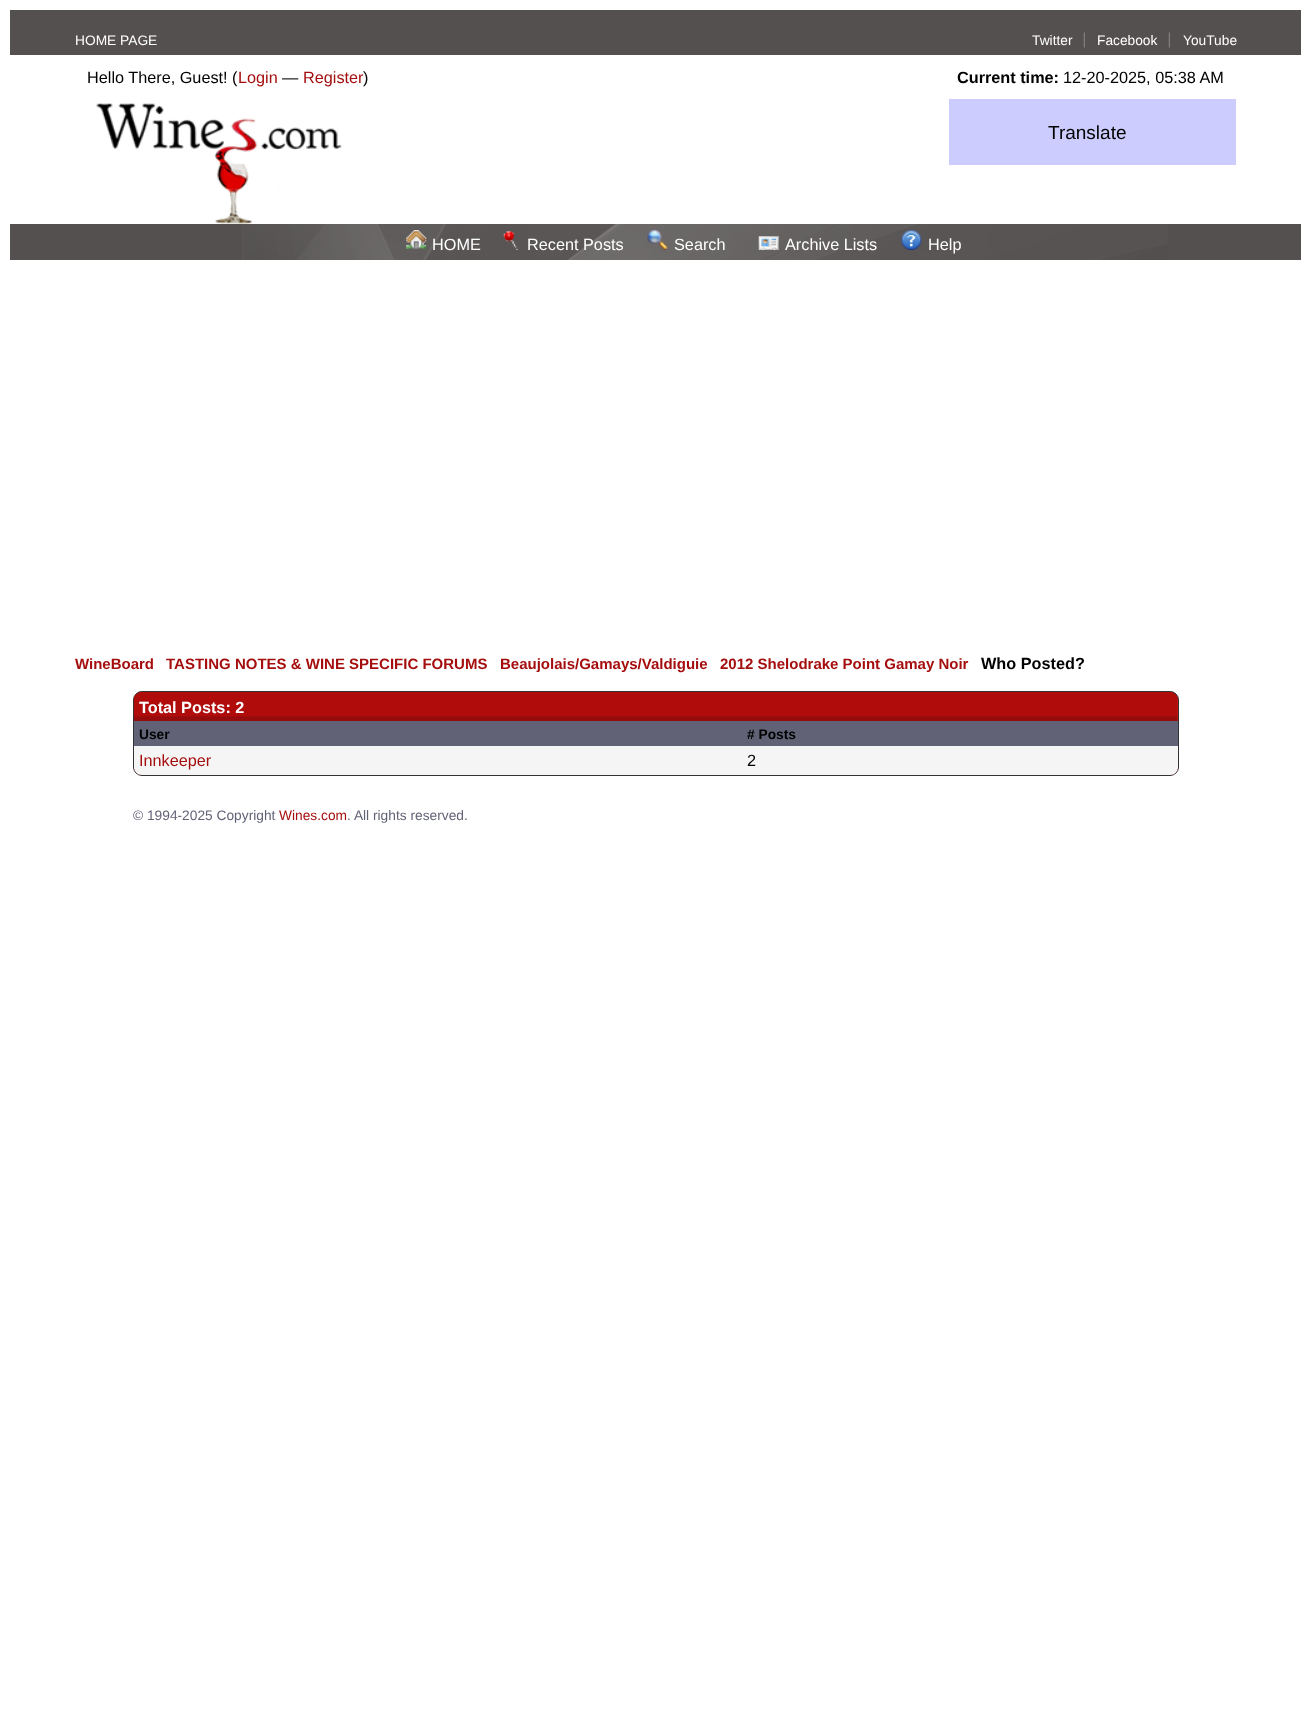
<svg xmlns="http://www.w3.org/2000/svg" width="1311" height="1710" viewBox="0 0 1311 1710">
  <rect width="100%" height="100%" fill="#fff"/>
  <path d="M10 10h1291v45H10z" fill="#545050"/>
  <image x="1083" y="32" width="2" height="16" href="img/1.png"/>
  <image x="1168" y="32" width="2" height="16" href="img/1.png"/>
  <image x="96" y="103" width="246" height="121" href="img/2.png"/>
  <path d="M949 99h287v66H949z" fill="#ccf"/>
  <path d="M10 224h1291v36H10z" fill="#545050"/>
  <image x="241" y="224" width="927" height="36" href="img/3.png"/>
  <image x="406" y="230" width="21" height="19" href="img/4.png"/>
  <image x="503" y="231" width="15" height="19" href="img/5.png"/>
  <image x="647" y="230" width="21" height="20" href="img/6.png"/>
  <image x="758" y="236" width="21" height="14" href="img/7.png"/>
  <image x="901" y="230" width="21" height="20" href="img/8.png"/>
  <rect x="133.5" y="691.5" width="1045" height="84" rx="8.5" fill="#b00c0c" stroke="#333"/>
  <path d="M142 693H1170C1174.5 693 1178 696.5 1178 701V721H134V701C134 696.5 137.5 693 142 693Z" fill="#c21616"/>
  <image x="133" y="692" width="1045" height="29" href="img/9.png"/>
  <path d="M134 721h1044v25H134z" fill="#616276"/>
  <path d="M134 746H743V775H142C137.5 775 134 771.5 134 767Z" fill="#f5f5f5"/>
  <path d="M743 746H1178V767C1178 771.5 1174.5 775 1170 775H743Z" fill="#f5f5f5"/>
  <g font-family="Liberation Sans" font-size="13.75" fill="#fff">
    <text x="75" y="45">HOME PAGE</text>
    <text x="1032" y="45">Twitter</text>
    <text x="1097" y="45">Facebook</text>
    <text x="1183" y="45">YouTube</text>
  </g>
  <text x="87" y="83" font-family="Liberation Sans" font-size="16.25" fill="#000">Hello There, Guest! (</text>
  <text x="238" y="83" font-family="Liberation Sans" font-size="16.25" fill="#a50e0e">Login</text>
  <text x="282" y="83" font-family="Liberation Sans" font-size="16.25" fill="#000">—</text>
  <text x="303" y="83" font-family="Liberation Sans" font-size="16.25" fill="#a50e0e">Register</text>
  <text x="363" y="83" font-family="Liberation Sans" font-size="16.25" fill="#000">)</text>
  <text x="957" y="83" font-family="Liberation Sans" font-size="16.25" font-weight="bold" fill="#000">Current time:</text>
  <text x="1063" y="83" font-family="Liberation Sans" font-size="16.25" fill="#000">12-20-2025, 05:38 AM</text>
  <text x="1048" y="139" font-family="Liberation Sans" font-size="19" fill="#000">Translate</text>
  <g font-family="Liberation Sans" font-size="16.25" fill="#fff">
    <text x="432" y="250">HOME</text>
    <text x="527" y="250">Recent Posts</text>
    <text x="674" y="250">Search</text>
    <text x="785" y="250">Archive Lists</text>
    <text x="928" y="250">Help</text>
  </g>
  <g font-family="Liberation Sans" font-size="15" font-weight="bold" fill="#a50e0e">
    <text x="75" y="669">WineBoard</text>
    <text x="166" y="669">TASTING NOTES &amp; WINE SPECIFIC FORUMS</text>
    <text x="500" y="669">Beaujolais/Gamays/Valdiguie</text>
    <text x="720" y="669">2012 Shelodrake Point Gamay Noir</text>
  </g>
  <text x="981" y="669" font-family="Liberation Sans" font-size="16.25" font-weight="bold" fill="#000">Who Posted?</text>
  <text x="139" y="713" font-family="Liberation Sans" font-size="16.25" font-weight="bold" fill="#fff">Total Posts: 2</text>
  <g font-family="Liberation Sans" font-size="13.75" font-weight="bold" fill="#000">
    <text x="139" y="739">User</text>
    <text x="747" y="739"># Posts</text>
  </g>
  <text x="139" y="766" font-family="Liberation Sans" font-size="16.25" fill="#a50e0e">Innkeeper</text>
  <text x="747" y="766" font-family="Liberation Sans" font-size="16.25" fill="#000">2</text>
  <text x="133" y="820" font-family="Liberation Sans" font-size="13.75" fill="#616276">© 1994-2025 Copyright</text>
  <text x="279" y="820" font-family="Liberation Sans" font-size="13.75" fill="#a50e0e">Wines.com</text>
  <text x="347" y="820" font-family="Liberation Sans" font-size="13.75" fill="#616276">. All rights reserved.</text>
</svg>
